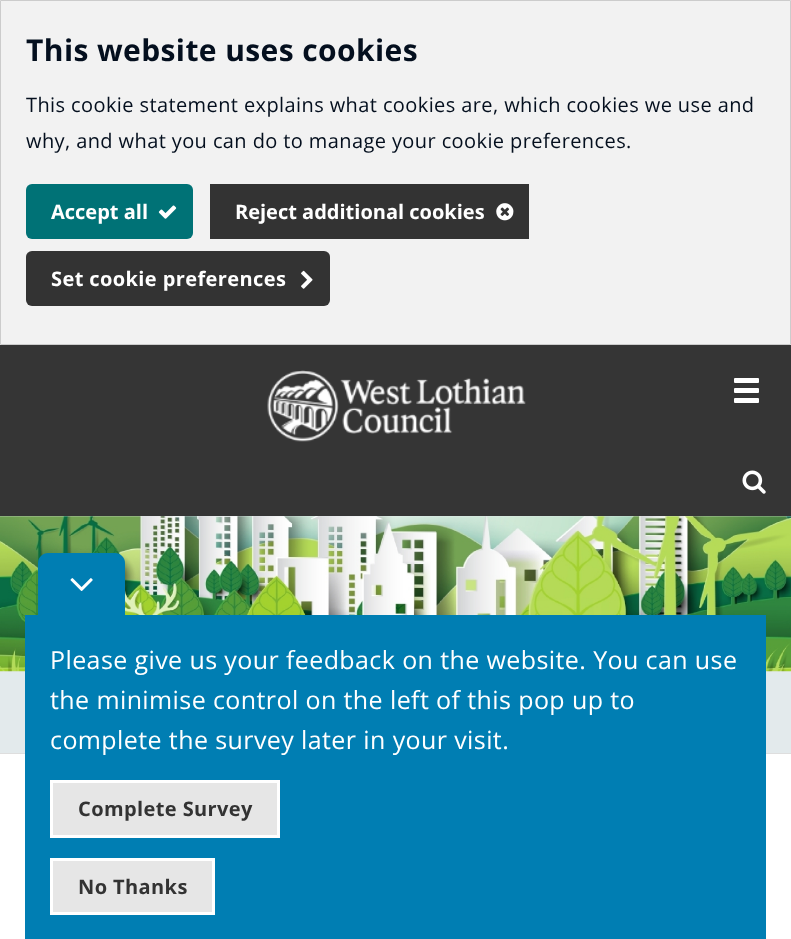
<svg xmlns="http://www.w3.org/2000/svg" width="791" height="939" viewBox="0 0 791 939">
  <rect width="100%" height="100%" fill="#fff"/>
  <path d="M0.5 0.5h790v344H0.5z" fill="#f2f2f2" stroke="#ccc"/>
  <rect x="26" y="184" width="167" height="55" rx="6" fill="#007276"/>
  <image x="158" y="205" width="19" height="14" href="img/1.png"/>
  <path d="M210 184h319v55H210z" fill="#333"/>
  <image x="496" y="203" width="18" height="18" href="img/2.png"/>
  <rect x="26" y="251" width="304" height="55" rx="6" fill="#333"/>
  <image x="301" y="270" width="12" height="19" href="img/3.png"/>
  <path d="M0 345h791v171H0z" fill="#353535"/>
  <image x="267" y="370" width="259" height="72" href="img/4.png"/>
  <rect x="734" y="378" width="25" height="5" rx="1" fill="#fff"/>
  <rect x="734" y="388" width="25" height="5" rx="1" fill="#fff"/>
  <rect x="734" y="398" width="25" height="5" rx="1" fill="#fff"/>
  <image x="742" y="470" width="24" height="24" href="img/5.png"/>
  <path d="M0 516h791v164H0z" fill="#e1eaec"/>
  <image x="0" y="516" width="791" height="156" href="img/6.png"/>
  <path d="M48 553H115C120.5 553 125 557.5 125 563V615H38V563C38 557.5 42.5 553 48 553Z" fill="#007eb3"/>
  <image x="70" y="578" width="23" height="13" href="img/7.png"/>
  <path d="M0 680h791v73H0z" fill="#e3eaec"/>
  <path d="M0 753h791v1H0z" fill="#dedede"/>
  <path d="M25 615h741v324H25z" fill="#007eb3"/>
  <path d="M51.5 781.5h227v55H51.5z" fill="#e6e6e6" stroke="#fff" stroke-width="3"/>
  <path d="M51.5 859.5h162v54H51.5z" fill="#e6e6e6" stroke="#fff" stroke-width="3"/>
  <text x="26" y="61" font-family="Open Sans" font-size="30" font-weight="bold" letter-spacing="0.4" fill="#040f1e">This website uses cookies</text>
  <g font-family="Open Sans" font-size="20" letter-spacing="0.4" fill="#040f1e">
    <text x="26" y="112">This cookie statement explains what cookies are, which cookies we use and</text>
    <text x="26" y="148">why, and what you can do to manage your cookie preferences.</text>
  </g>
  <g font-family="Open Sans" font-size="20" font-weight="bold" fill="#fff">
    <text x="51" y="219">Accept all</text>
    <text x="235" y="219">Reject additional cookies</text>
  </g>
  <text x="51" y="286" font-family="Open Sans" font-size="20" font-weight="bold" letter-spacing="0.4" fill="#fff">Set cookie preferences</text>
  <g font-family="Open Sans" font-size="25" letter-spacing="0.4" fill="#fff">
    <text x="50" y="669">Please give us your feedback on the website. You can use</text>
    <text x="50" y="709">the minimise control on the left of this pop up to</text>
    <text x="50" y="749">complete the survey later in your visit.</text>
  </g>
  <g font-family="Open Sans" font-size="20" font-weight="bold" letter-spacing="0.4" fill="#333">
    <text x="78" y="816">Complete Survey</text>
    <text x="78" y="894">No Thanks</text>
  </g>
</svg>
